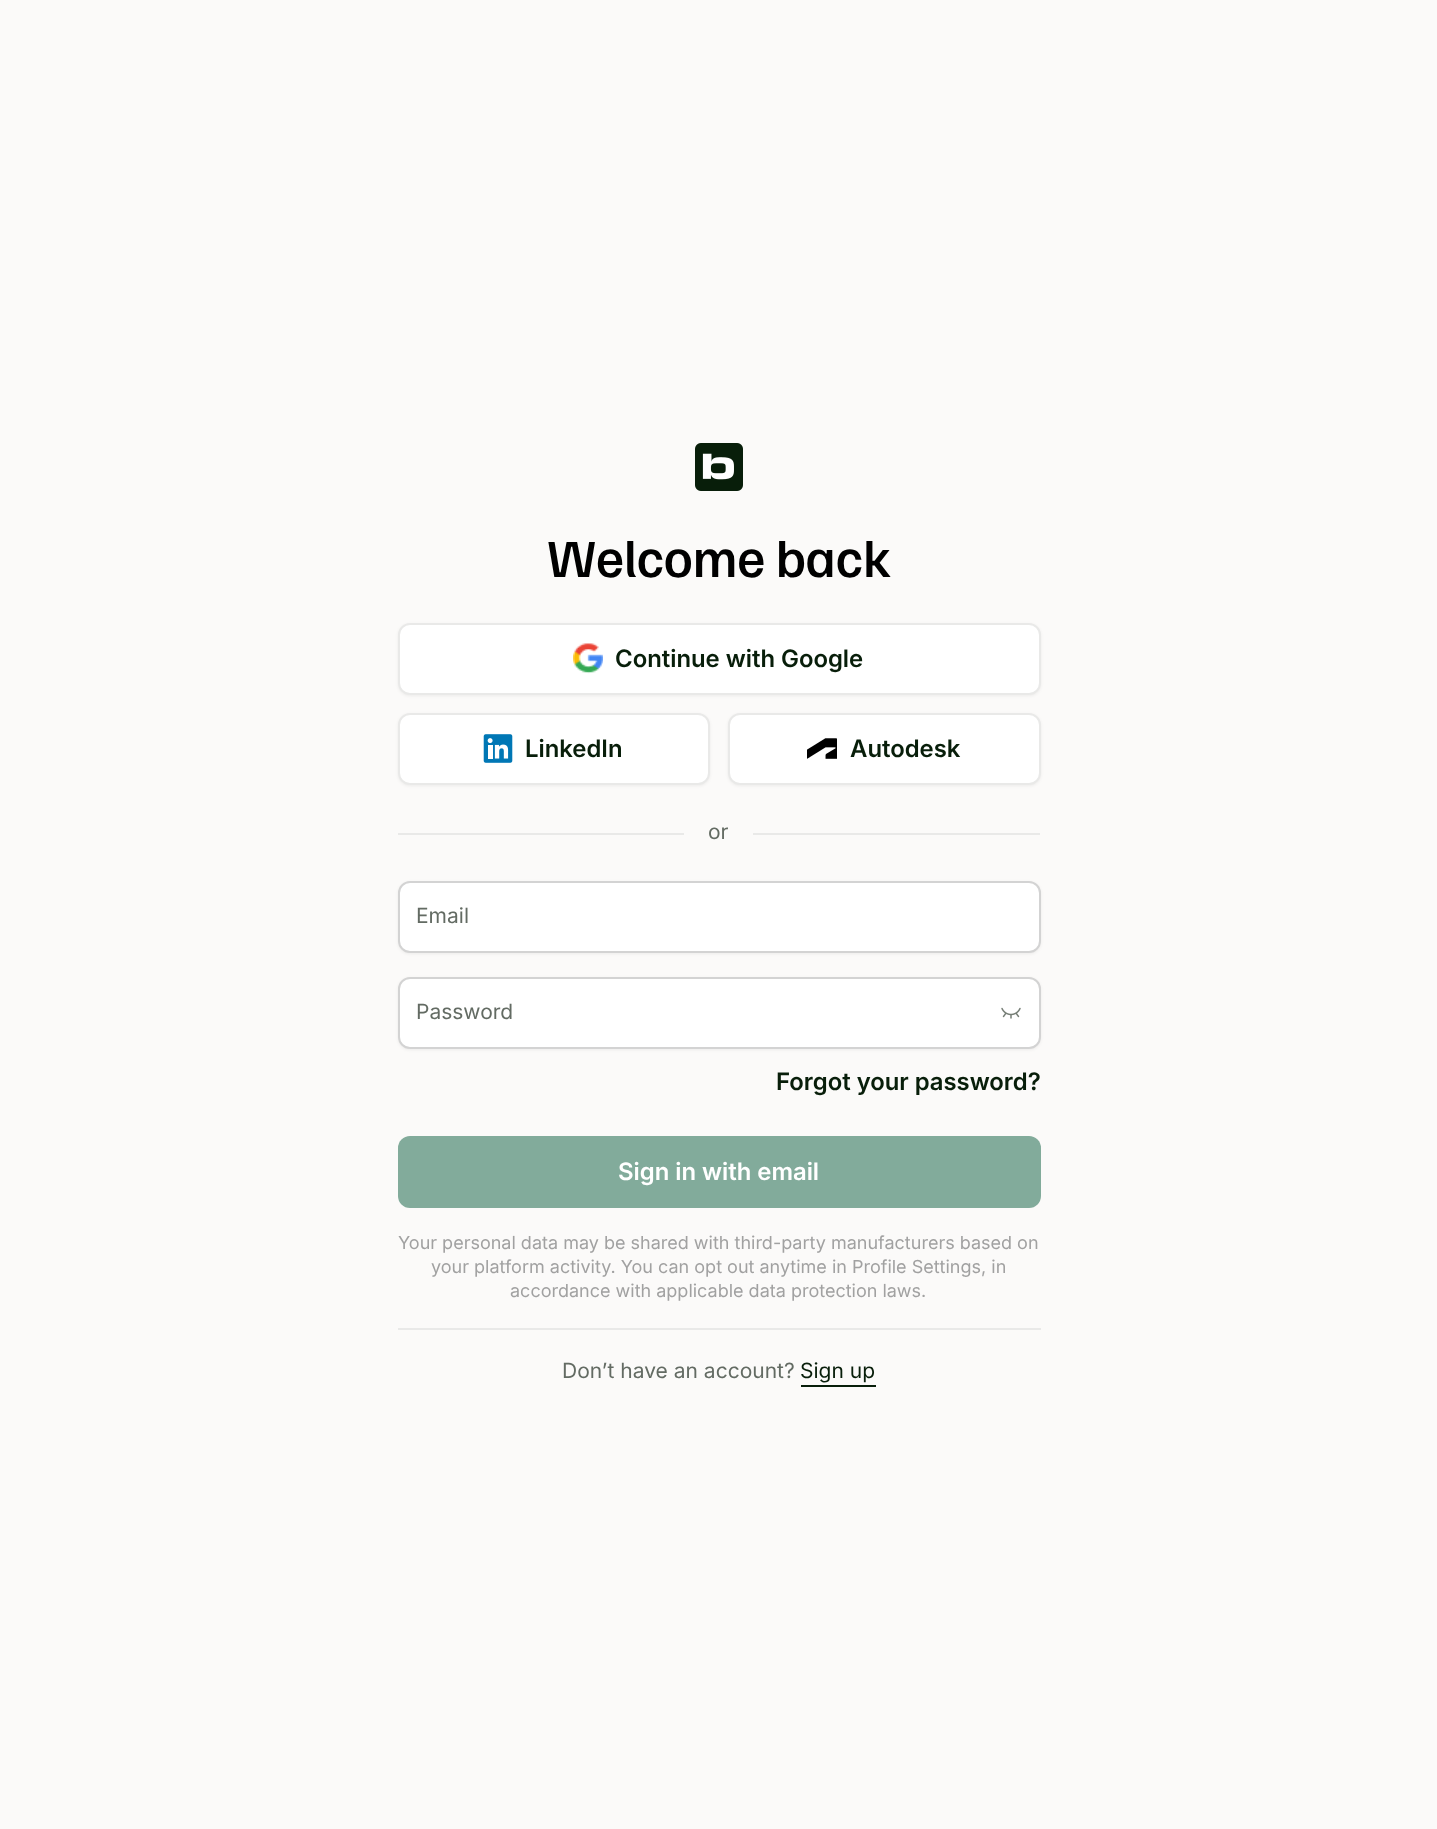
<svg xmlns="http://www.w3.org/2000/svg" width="1437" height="1829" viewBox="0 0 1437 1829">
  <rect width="100%" height="100%" fill="#fbfaf9"/>
  <image x="695" y="443" width="48" height="48" href="img/1.png"/>
  <rect x="398" y="624" width="643" height="72" rx="12" fill="#0000000f" filter="blur(1.5px)"/>
  <rect x="399" y="624" width="641" height="70" rx="11" fill="#fff" stroke="#e9e9e8" stroke-width="2"/>
  <image x="573" y="643" width="30" height="31" href="img/2.png"/>
  <rect x="398" y="714" width="312" height="72" rx="12" fill="#0000000f" filter="blur(1.5px)"/>
  <rect x="399" y="714" width="310" height="70" rx="11" fill="#fff" stroke="#e9e9e8" stroke-width="2"/>
  <image x="483" y="734" width="30" height="29" href="img/3.png"/>
  <rect x="728" y="714" width="313" height="72" rx="12" fill="#0000000f" filter="blur(1.5px)"/>
  <rect x="729" y="714" width="311" height="70" rx="11" fill="#fff" stroke="#e9e9e8" stroke-width="2"/>
  <image x="807" y="738" width="30" height="21" href="img/4.png"/>
  <path d="M398 833h286v2H398z" fill="#e9e9e8"/>
  <path d="M753 833h287v2H753z" fill="#e9e9e8"/>
  <rect x="398" y="882" width="643" height="72" rx="12" fill="#0000000f" filter="blur(1.5px)"/>
  <rect x="399" y="882" width="641" height="70" rx="11" fill="#fff" stroke="#d3d3d3" stroke-width="2"/>
  <rect x="398" y="978" width="643" height="72" rx="12" fill="#0000000f" filter="blur(1.5px)"/>
  <rect x="399" y="978" width="641" height="70" rx="11" fill="#fff" stroke="#d3d3d3" stroke-width="2"/>
  <image x="1001" y="1007" width="20" height="12" href="img/5.png"/>
  <rect x="398" y="1136" width="643" height="72" rx="12" fill="#82ab9b"/>
  <path d="M398 1328h643v2H398z" fill="#e9e9e8"/>
  <path d="M801 1385h75v2H801z" fill="#081e0a"/>
  <text x="547" y="577" font-family="Familjen Grotesk" font-size="54" font-weight="500" letter-spacing="-0.25" fill="#000">Welcome back</text>
  <g font-family="Inter" font-size="24" font-weight="600" fill="#081e0a">
    <text x="615" y="667">Continue with Google</text>
    <text x="525" y="757">LinkedIn</text>
    <text x="850" y="757">Autodesk</text>
  </g>
  <g font-family="Inter" font-size="21" fill="#636b63">
    <text x="708" y="839">or</text>
    <text x="416" y="923">Email</text>
    <text x="416" y="1019">Password</text>
  </g>
  <text x="776" y="1090" font-family="'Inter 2'" font-size="24" font-weight="600" fill="#081e0a">Forgot your password?</text>
  <text x="618" y="1180" font-family="Inter" font-size="24" font-weight="600" fill="#fff">Sign in with email</text>
  <g font-family="Inter" font-size="18" fill="#a1a1a1">
    <text x="398" y="1249">Your personal data may be shared with third-party manufacturers based on</text>
    <text x="431" y="1273">your platform activity. You can opt out anytime in Profile Settings, in</text>
    <text x="510" y="1297">accordance with applicable data protection laws.</text>
  </g>
  <text x="562" y="1378" font-family="Inter" font-size="21" fill="#636b63">Don’t have an account?</text>
  <text x="800" y="1378" font-family="Inter" font-size="21" fill="#081e0a">Sign up</text>
</svg>
